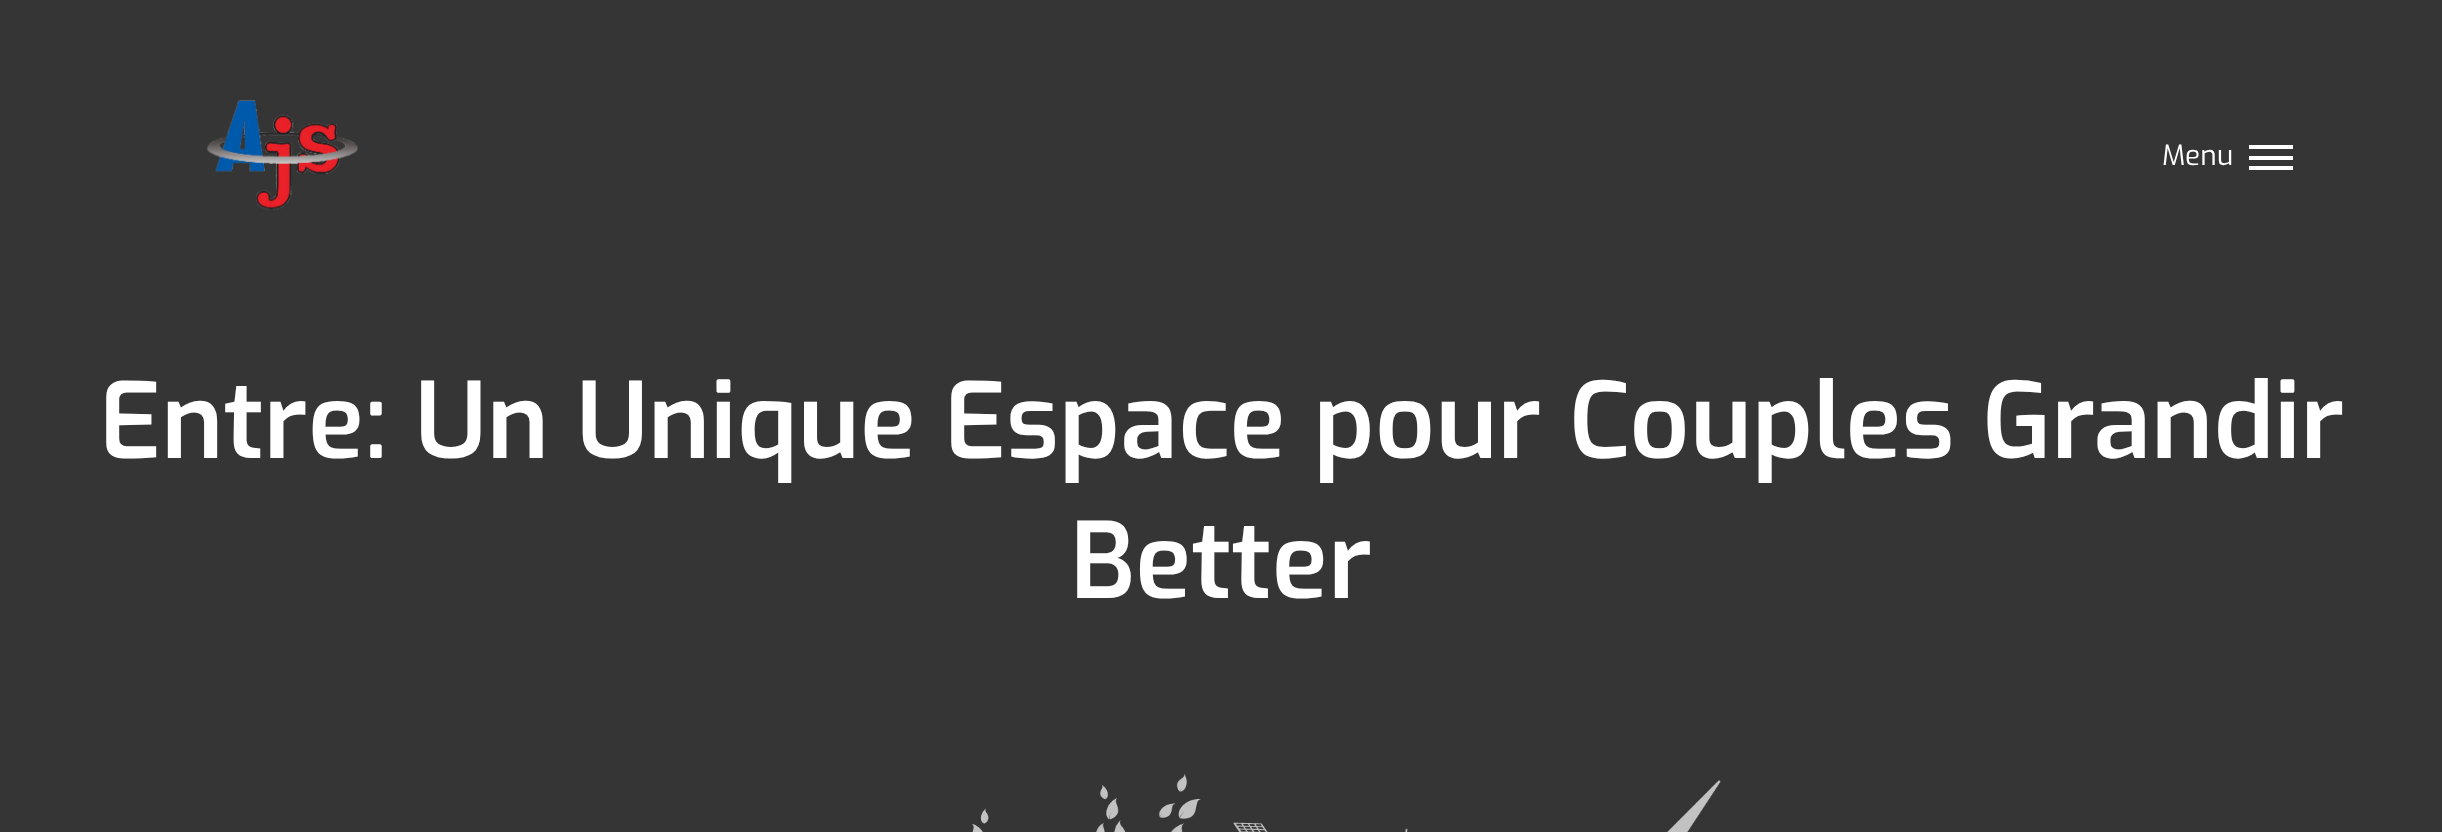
<svg xmlns="http://www.w3.org/2000/svg" width="2442" height="832" viewBox="0 0 2442 832">
  <rect width="100%" height="100%" fill="#353535"/>
  <image x="206" y="100" width="152" height="110" href="img/1.png"/>
  <path d="M2249 145h44v4H2249z" fill="#fff"/>
  <path d="M2249 156h44v4H2249z" fill="#fff"/>
  <path d="M2249 166h44v4H2249z" fill="#fff"/>
  <image x="972" y="774" width="749" height="58" href="img/2.png"/>
  <text x="2162" y="165" font-family="Exo" font-size="28" fill="#fff">Menu</text>
  <g font-family="Exo" font-size="105" font-weight="600" fill="#fff">
    <text x="99" y="458">Entre: Un Unique Espace pour Couples Grandir</text>
    <text x="1070" y="598">Better</text>
  </g>
</svg>
